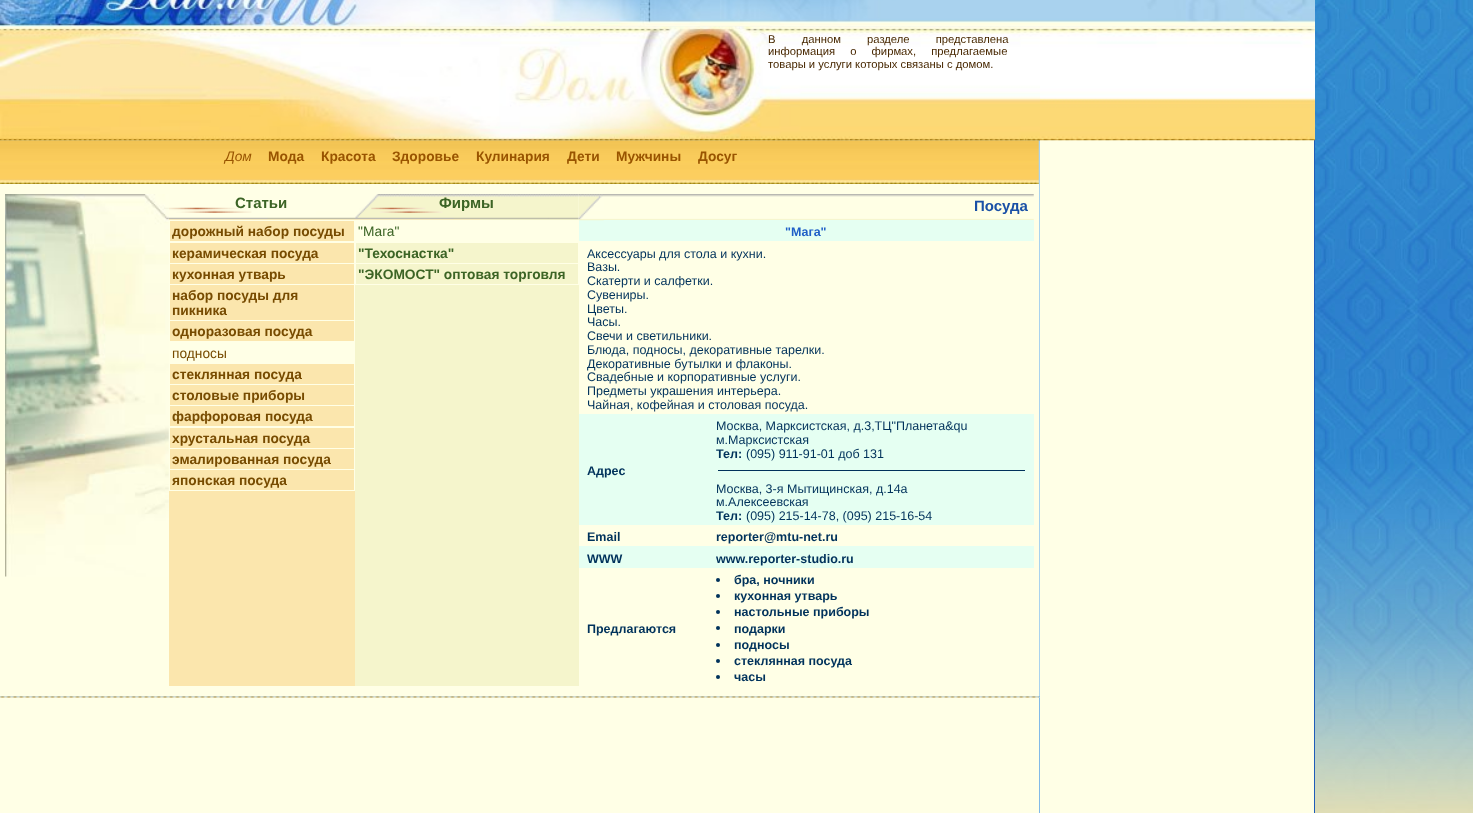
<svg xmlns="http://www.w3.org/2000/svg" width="1473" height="813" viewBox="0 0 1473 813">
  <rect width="100%" height="100%" fill="#a9d2ee"/>
  <image x="0" y="26" width="1040" height="1" href="img/1.png"/>
  <image x="0" y="26" width="1040" height="115" href="img/6.png"/>
  <image x="0" y="0" width="1040" height="27" href="img/2.png"/>
  <image x="1040" y="26" width="275" height="1" href="img/3.png"/>
  <image x="1040" y="26" width="275" height="1" href="img/8.png"/>
  <image x="1040" y="0" width="275" height="27" href="img/4.png"/>
  <image x="1315" y="0" width="158" height="813" href="img/5.png"/>
  <image x="0" y="140" width="1039" height="44" href="img/10.png"/>
  <image x="0" y="26" width="1040" height="115" href="img/7.png"/>
  <path d="M1040 140h274v673H1040z" fill="#ffffe6"/>
  <path d="M1314 140h1v673H1314z" fill="#1f5cb9"/>
  <image x="1040" y="26" width="275" height="115" href="img/9.png"/>
  <path d="M0 184h1039v512H0z" fill="#ffffe6"/>
  <image x="168" y="207" width="187" height="14" href="img/12.png"/>
  <image x="5" y="194" width="164" height="383" href="img/11.png"/>
  <image x="355" y="194" width="224" height="26" href="img/13.png"/>
  <image x="578" y="194" width="456" height="26" href="img/14.png"/>
  <path d="M579 220h455v21H579z" fill="#e5fff2"/>
  <image x="578" y="194" width="26" height="27" href="img/15.png"/>
  <path d="M169 491h186v195H169z" fill="#fbe6ad"/>
  <path d="M169 220h186v1H169z" fill="#ffffe6"/>
  <path d="M170 221h184v20H170z" fill="#fbe6ad"/>
  <path d="M170 243h184v20H170z" fill="#fbe6ad"/>
  <path d="M170 264h184v20H170z" fill="#fbe6ad"/>
  <path d="M170 285h184v35H170z" fill="#fbe6ad"/>
  <path d="M170 321h184v20H170z" fill="#fbe6ad"/>
  <path d="M170 364h184v20H170z" fill="#fbe6ad"/>
  <path d="M170 385h184v20H170z" fill="#fbe6ad"/>
  <path d="M170 406h184v20H170z" fill="#fbe6ad"/>
  <path d="M170 428h184v20H170z" fill="#fbe6ad"/>
  <path d="M170 449h184v20H170z" fill="#fbe6ad"/>
  <path d="M170 470h184v20H170z" fill="#fbe6ad"/>
  <path d="M355 285h224v401H355z" fill="#f5f5cc"/>
  <path d="M356 243h222v20H356z" fill="#f5f5cc"/>
  <path d="M356 264h222v20H356z" fill="#f5f5cc"/>
  <path d="M579 414h455v111H579z" fill="#e5fff2"/>
  <path d="M718 470h307v1H718z" fill="#00325b"/>
  <path d="M579 546h455v22H579z" fill="#e5fff2"/>
  <circle cx="718" cy="580" r="2" fill="#00325b"/>
  <circle cx="718" cy="596" r="2" fill="#00325b"/>
  <circle cx="718" cy="612" r="2" fill="#00325b"/>
  <circle cx="718" cy="628" r="2" fill="#00325b"/>
  <circle cx="718" cy="645" r="2" fill="#00325b"/>
  <circle cx="718" cy="661" r="2" fill="#00325b"/>
  <circle cx="718" cy="677" r="2" fill="#00325b"/>
  <image x="0" y="696" width="1039" height="2" href="img/16.png"/>
  <path d="M1039 696h1v1H1039z" fill="#81b9e8"/>
  <path d="M0 698h1039v115H0z" fill="#ffffe6"/>
  <path d="M1039 698h1v115H1039z" fill="#81b9e8"/>
  <g font-family="Liberation Sans" font-size="11.25" fill="#472700">
    <text x="768" y="43" word-spacing="23">В данном разделе представлена</text>
    <text x="768" y="55" word-spacing="12">информация о фирмах, предлагаемые</text>
    <text x="768" y="68">товары и услуги которых связаны с домом.</text>
  </g>
  <text x="225" y="161" font-family="Liberation Sans" font-size="13.75" font-style="italic" fill="#995400">Дом</text>
  <g font-family="Liberation Sans" font-size="13.75" font-weight="bold" fill="#995400">
    <text x="268" y="161">Мода</text>
    <text x="321" y="161">Красота</text>
    <text x="392" y="161">Здоровье</text>
    <text x="476" y="161">Кулинария</text>
    <text x="567" y="161">Дети</text>
    <text x="616" y="161">Мужчины</text>
    <text x="698" y="161">Досуг</text>
  </g>
  <g font-family="Liberation Sans" font-size="15" font-weight="bold" fill="#3c6425">
    <text x="235" y="208">Статьи</text>
    <text x="439" y="208">Фирмы</text>
  </g>
  <text x="974" y="211" font-family="Liberation Sans" font-size="15" font-weight="bold" fill="#1a50a6">Посуда</text>
  <g font-family="Liberation Sans" font-size="13.75" font-weight="bold" fill="#774b00">
    <text x="172" y="236">дорожный набор посуды</text>
    <text x="172" y="258">керамическая посуда</text>
    <text x="172" y="279">кухонная утварь</text>
    <text x="172" y="300">набор посуды для</text>
    <text x="172" y="315">пикника</text>
    <text x="172" y="336">одноразовая посуда</text>
  </g>
  <text x="172" y="358" font-family="Liberation Sans" font-size="13.75" fill="#774b00">подносы</text>
  <g font-family="Liberation Sans" font-size="13.75" font-weight="bold" fill="#774b00">
    <text x="172" y="379">стеклянная посуда</text>
    <text x="172" y="400">столовые приборы</text>
    <text x="172" y="421">фарфоровая посуда</text>
    <text x="172" y="443">хрустальная посуда</text>
    <text x="172" y="464">эмалированная посуда</text>
    <text x="172" y="485">японская посуда</text>
  </g>
  <text x="358" y="236" font-family="Liberation Sans" font-size="13.75" fill="#3c6425">"Мага"</text>
  <g font-family="Liberation Sans" font-size="13.75" font-weight="bold" fill="#3c6425">
    <text x="358" y="258">"Техоснастка"</text>
    <text x="358" y="279">"ЭКОМОСТ" оптовая торговля</text>
  </g>
  <text x="785" y="236" font-family="Liberation Sans" font-size="12.5" font-weight="bold" fill="#1f5fc7">"Мага"</text>
  <g font-family="Liberation Sans" font-size="12.5" fill="#00325b">
    <text x="587" y="258">Аксессуары для стола и кухни.</text>
    <text x="587" y="271">Вазы.</text>
    <text x="587" y="285">Скатерти и салфетки.</text>
    <text x="587" y="299">Сувениры.</text>
    <text x="587" y="313">Цветы.</text>
    <text x="587" y="326">Часы.</text>
    <text x="587" y="340">Свечи и светильники.</text>
    <text x="587" y="354">Блюда, подносы, декоративные тарелки.</text>
    <text x="587" y="368">Декоративные бутылки и флаконы.</text>
    <text x="587" y="381">Свадебные и корпоративные услуги.</text>
    <text x="587" y="395">Предметы украшения интерьера.</text>
    <text x="587" y="409">Чайная, кофейная и столовая посуда.</text>
  </g>
  <text x="587" y="475" font-family="Liberation Sans" font-size="12.5" font-weight="bold" fill="#00325b">Адрес</text>
  <g font-family="Liberation Sans" font-size="12.5" fill="#00325b">
    <text x="716" y="430">Москва, Марксистская, д.3,ТЦ"Планета&amp;qu</text>
    <text x="716" y="444">м.Марксистская</text>
  </g>
  <text x="716" y="458" font-family="Liberation Sans" font-size="12.5" font-weight="bold" fill="#00325b">Тел:</text>
  <g font-family="Liberation Sans" font-size="12.5" fill="#00325b">
    <text x="746" y="458">(095) 911-91-01 доб 131</text>
    <text x="716" y="493">Москва, 3-я Мытищинская, д.14а</text>
    <text x="716" y="506">м.Алексеевская</text>
  </g>
  <text x="716" y="520" font-family="Liberation Sans" font-size="12.5" font-weight="bold" fill="#00325b">Тел:</text>
  <text x="746" y="520" font-family="Liberation Sans" font-size="12.5" fill="#00325b">(095) 215-14-78, (095) 215-16-54</text>
  <g font-family="Liberation Sans" font-size="12.5" font-weight="bold" fill="#00325b">
    <text x="587" y="541">Email</text>
    <text x="716" y="541">reporter@mtu-net.ru</text>
    <text x="587" y="563">WWW</text>
    <text x="716" y="563">www.reporter-studio.ru</text>
    <text x="587" y="633">Предлагаются</text>
    <text x="734" y="584">бра, ночники</text>
    <text x="734" y="600">кухонная утварь</text>
    <text x="734" y="616">настольные приборы</text>
    <text x="734" y="633">подарки</text>
    <text x="734" y="649">подносы</text>
    <text x="734" y="665">стеклянная посуда</text>
    <text x="734" y="681">часы</text>
  </g>
</svg>
